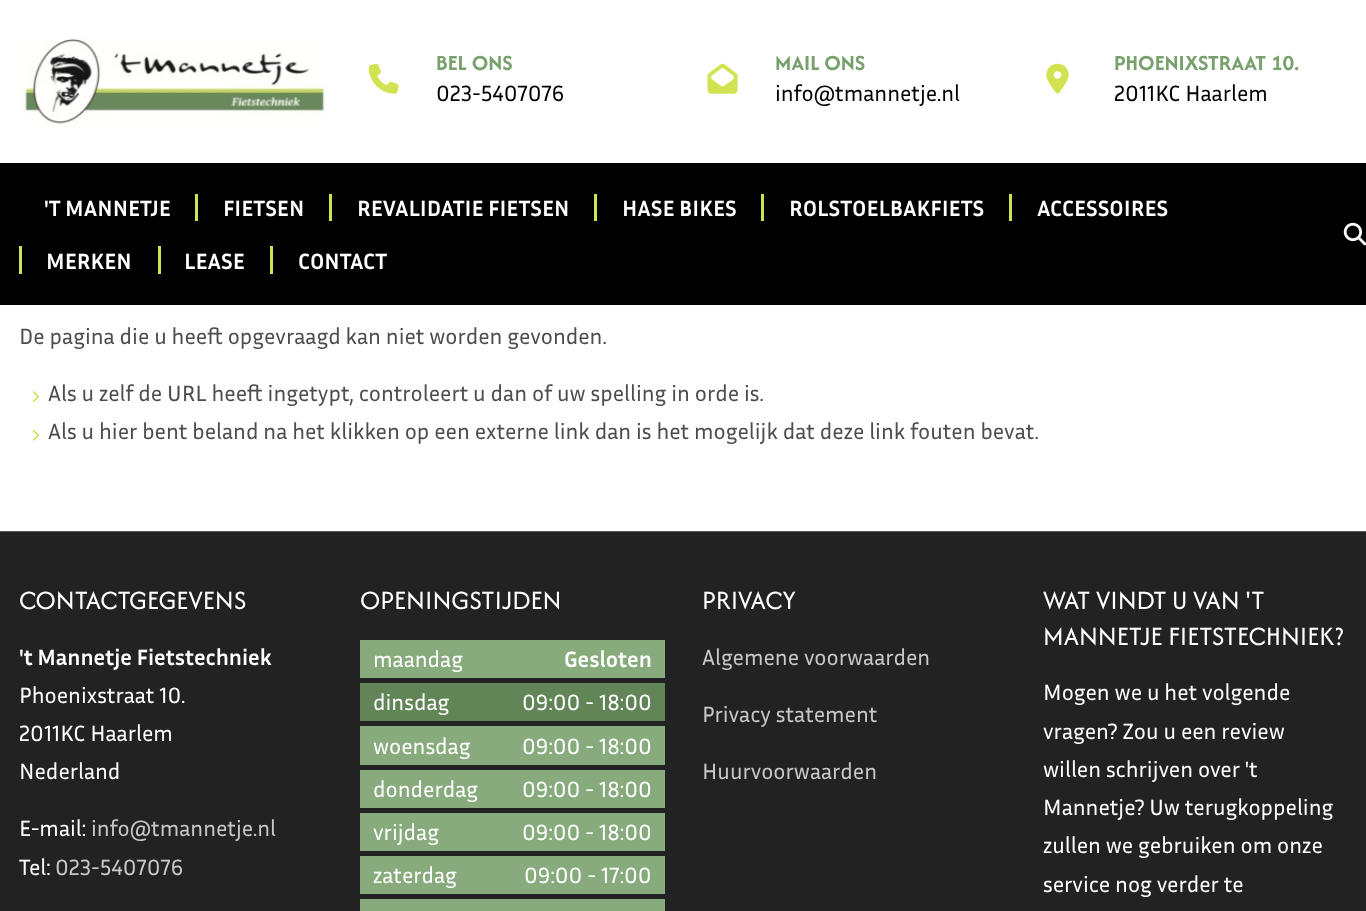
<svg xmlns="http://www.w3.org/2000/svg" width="1366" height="911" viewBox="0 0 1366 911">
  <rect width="100%" height="100%" fill="#fff"/>
  <image x="19" y="36" width="308" height="91" href="img/1.png"/>
  <image x="368" y="63" width="31" height="31" href="img/2.png"/>
  <image x="707" y="63" width="31" height="31" href="img/3.png"/>
  <image x="1046" y="63" width="23" height="31" href="img/4.png"/>
  <path d="M0 163h1366v142H0z" fill="#000"/>
  <path d="M195 194h3v27H195z" fill="#d1e350"/>
  <path d="M329 194h3v27H329z" fill="#d1e350"/>
  <path d="M594 194h3v27H594z" fill="#d1e350"/>
  <path d="M761 194h3v27H761z" fill="#d1e350"/>
  <path d="M1009 194h3v27H1009z" fill="#d1e350"/>
  <path d="M19 246h3v28H19z" fill="#d1e350"/>
  <path d="M158 246h3v28H158z" fill="#d1e350"/>
  <path d="M270 246h3v28H270z" fill="#d1e350"/>
  <image x="1343" y="222" width="23" height="24" href="img/5.png"/>
  <image x="32" y="391" width="7" height="11" href="img/6.png"/>
  <image x="32" y="429" width="7" height="12" href="img/7.png"/>
  <path d="M0 532h1366v379H0z" fill="#222"/>
  <path d="M0 531h1366v1H0z" fill="#595959"/>
  <path d="M360 640h305v38H360z" fill="#87ab7d"/>
  <path d="M360 683h305v38H360z" fill="#618557"/>
  <path d="M360 726h305v39H360z" fill="#87ab7d"/>
  <path d="M360 770h305v38H360z" fill="#87ab7d"/>
  <path d="M360 813h305v38H360z" fill="#87ab7d"/>
  <path d="M360 856h305v38H360z" fill="#87ab7d"/>
  <path d="M360 899h305v12H360z" fill="#87ab7d"/>
  <text x="436" y="70" font-family="Afacad Flux" font-size="22.5" font-weight="bold" fill="#79a16e">BEL ONS</text>
  <text x="436" y="101" font-family="Inria Sans" font-size="22.5" fill="#000">023-5407076</text>
  <text x="775" y="70" font-family="Afacad Flux" font-size="22.5" font-weight="bold" fill="#79a16e">MAIL ONS</text>
  <text x="775" y="101" font-family="Inria Sans" font-size="22.5" fill="#000">info@tmannetje.nl</text>
  <text x="1114" y="70" font-family="Afacad Flux" font-size="22.5" font-weight="bold" fill="#79a16e">PHOENIXSTRAAT 10.</text>
  <text x="1114" y="101" font-family="Inria Sans" font-size="22.5" fill="#000">2011KC Haarlem</text>
  <g font-family="Inria Sans" font-size="22.5" font-weight="bold" fill="#fff">
    <text x="44" y="216">'T MANNETJE</text>
    <text x="223" y="216">FIETSEN</text>
    <text x="357" y="216">REVALIDATIE FIETSEN</text>
    <text x="622" y="216">HASE BIKES</text>
    <text x="789" y="216">ROLSTOELBAKFIETS</text>
    <text x="1037" y="216">ACCESSOIRES</text>
    <text x="46" y="269">MERKEN</text>
    <text x="184" y="269">LEASE</text>
    <text x="298" y="269">CONTACT</text>
  </g>
  <g font-family="Inria Sans" font-size="22.5" fill="#4d4d4d">
    <text x="19" y="344">De pagina die u heeft opgevraagd kan niet worden gevonden.</text>
    <text x="48" y="401">Als u zelf de URL heeft ingetypt, controleert u dan of uw spelling in orde is.</text>
    <text x="48" y="439">Als u hier bent beland na het klikken op een externe link dan is het mogelijk dat deze link fouten bevat.</text>
  </g>
  <text x="19" y="609" font-family="Afacad Flux" font-size="27.5" fill="#fff">CONTACTGEGEVENS</text>
  <text x="19" y="665" font-family="Inria Sans" font-size="22.5" font-weight="bold" fill="#fff">'t Mannetje Fietstechniek</text>
  <g font-family="Inria Sans" font-size="22.5" fill="#fff">
    <text x="19" y="703">Phoenixstraat 10.</text>
    <text x="19" y="741">2011KC Haarlem</text>
    <text x="19" y="779">Nederland</text>
    <text x="19" y="836">E-mail:</text>
  </g>
  <text x="91" y="836" font-family="Inria Sans" font-size="22.5" fill="#c8c8c8">info@tmannetje.nl</text>
  <text x="19" y="875" font-family="Inria Sans" font-size="22.5" fill="#fff">Tel:</text>
  <text x="55" y="875" font-family="Inria Sans" font-size="22.5" fill="#c8c8c8">023-5407076</text>
  <text x="360" y="609" font-family="Afacad Flux" font-size="27.5" fill="#fff">OPENINGSTIJDEN</text>
  <text x="373" y="667" font-family="Inria Sans" font-size="22.5" fill="#fff">maandag</text>
  <text x="564" y="667" font-family="Inria Sans" font-size="22.5" font-weight="bold" fill="#fff">Gesloten</text>
  <g font-family="Inria Sans" font-size="22.5" fill="#fff">
    <text x="373" y="710">dinsdag</text>
    <text x="522" y="710">09:00 - 18:00</text>
    <text x="373" y="754">woensdag</text>
    <text x="522" y="754">09:00 - 18:00</text>
    <text x="373" y="797">donderdag</text>
    <text x="522" y="797">09:00 - 18:00</text>
    <text x="373" y="840">vrijdag</text>
    <text x="522" y="840">09:00 - 18:00</text>
    <text x="373" y="883">zaterdag</text>
    <text x="524" y="883">09:00 - 17:00</text>
  </g>
  <text x="702" y="609" font-family="Afacad Flux" font-size="27.5" fill="#fff">PRIVACY</text>
  <g font-family="Inria Sans" font-size="22.5" fill="#c8c8c8">
    <text x="702" y="665">Algemene voorwaarden</text>
    <text x="702" y="722">Privacy statement</text>
    <text x="702" y="779">Huurvoorwaarden</text>
  </g>
  <g font-family="Afacad Flux" font-size="27.5" fill="#fff">
    <text x="1043" y="609">WAT VINDT U VAN 'T</text>
    <text x="1043" y="645">MANNETJE FIETSTECHNIEK?</text>
  </g>
  <g font-family="Inria Sans" font-size="22.5" fill="#fff">
    <text x="1043" y="700">Mogen we u het volgende</text>
    <text x="1043" y="739">vragen? Zou u een review</text>
    <text x="1043" y="777">willen schrijven over 't</text>
    <text x="1043" y="815">Mannetje? Uw terugkoppeling</text>
    <text x="1043" y="853">zullen we gebruiken om onze</text>
    <text x="1043" y="892">service nog verder te</text>
  </g>
</svg>
